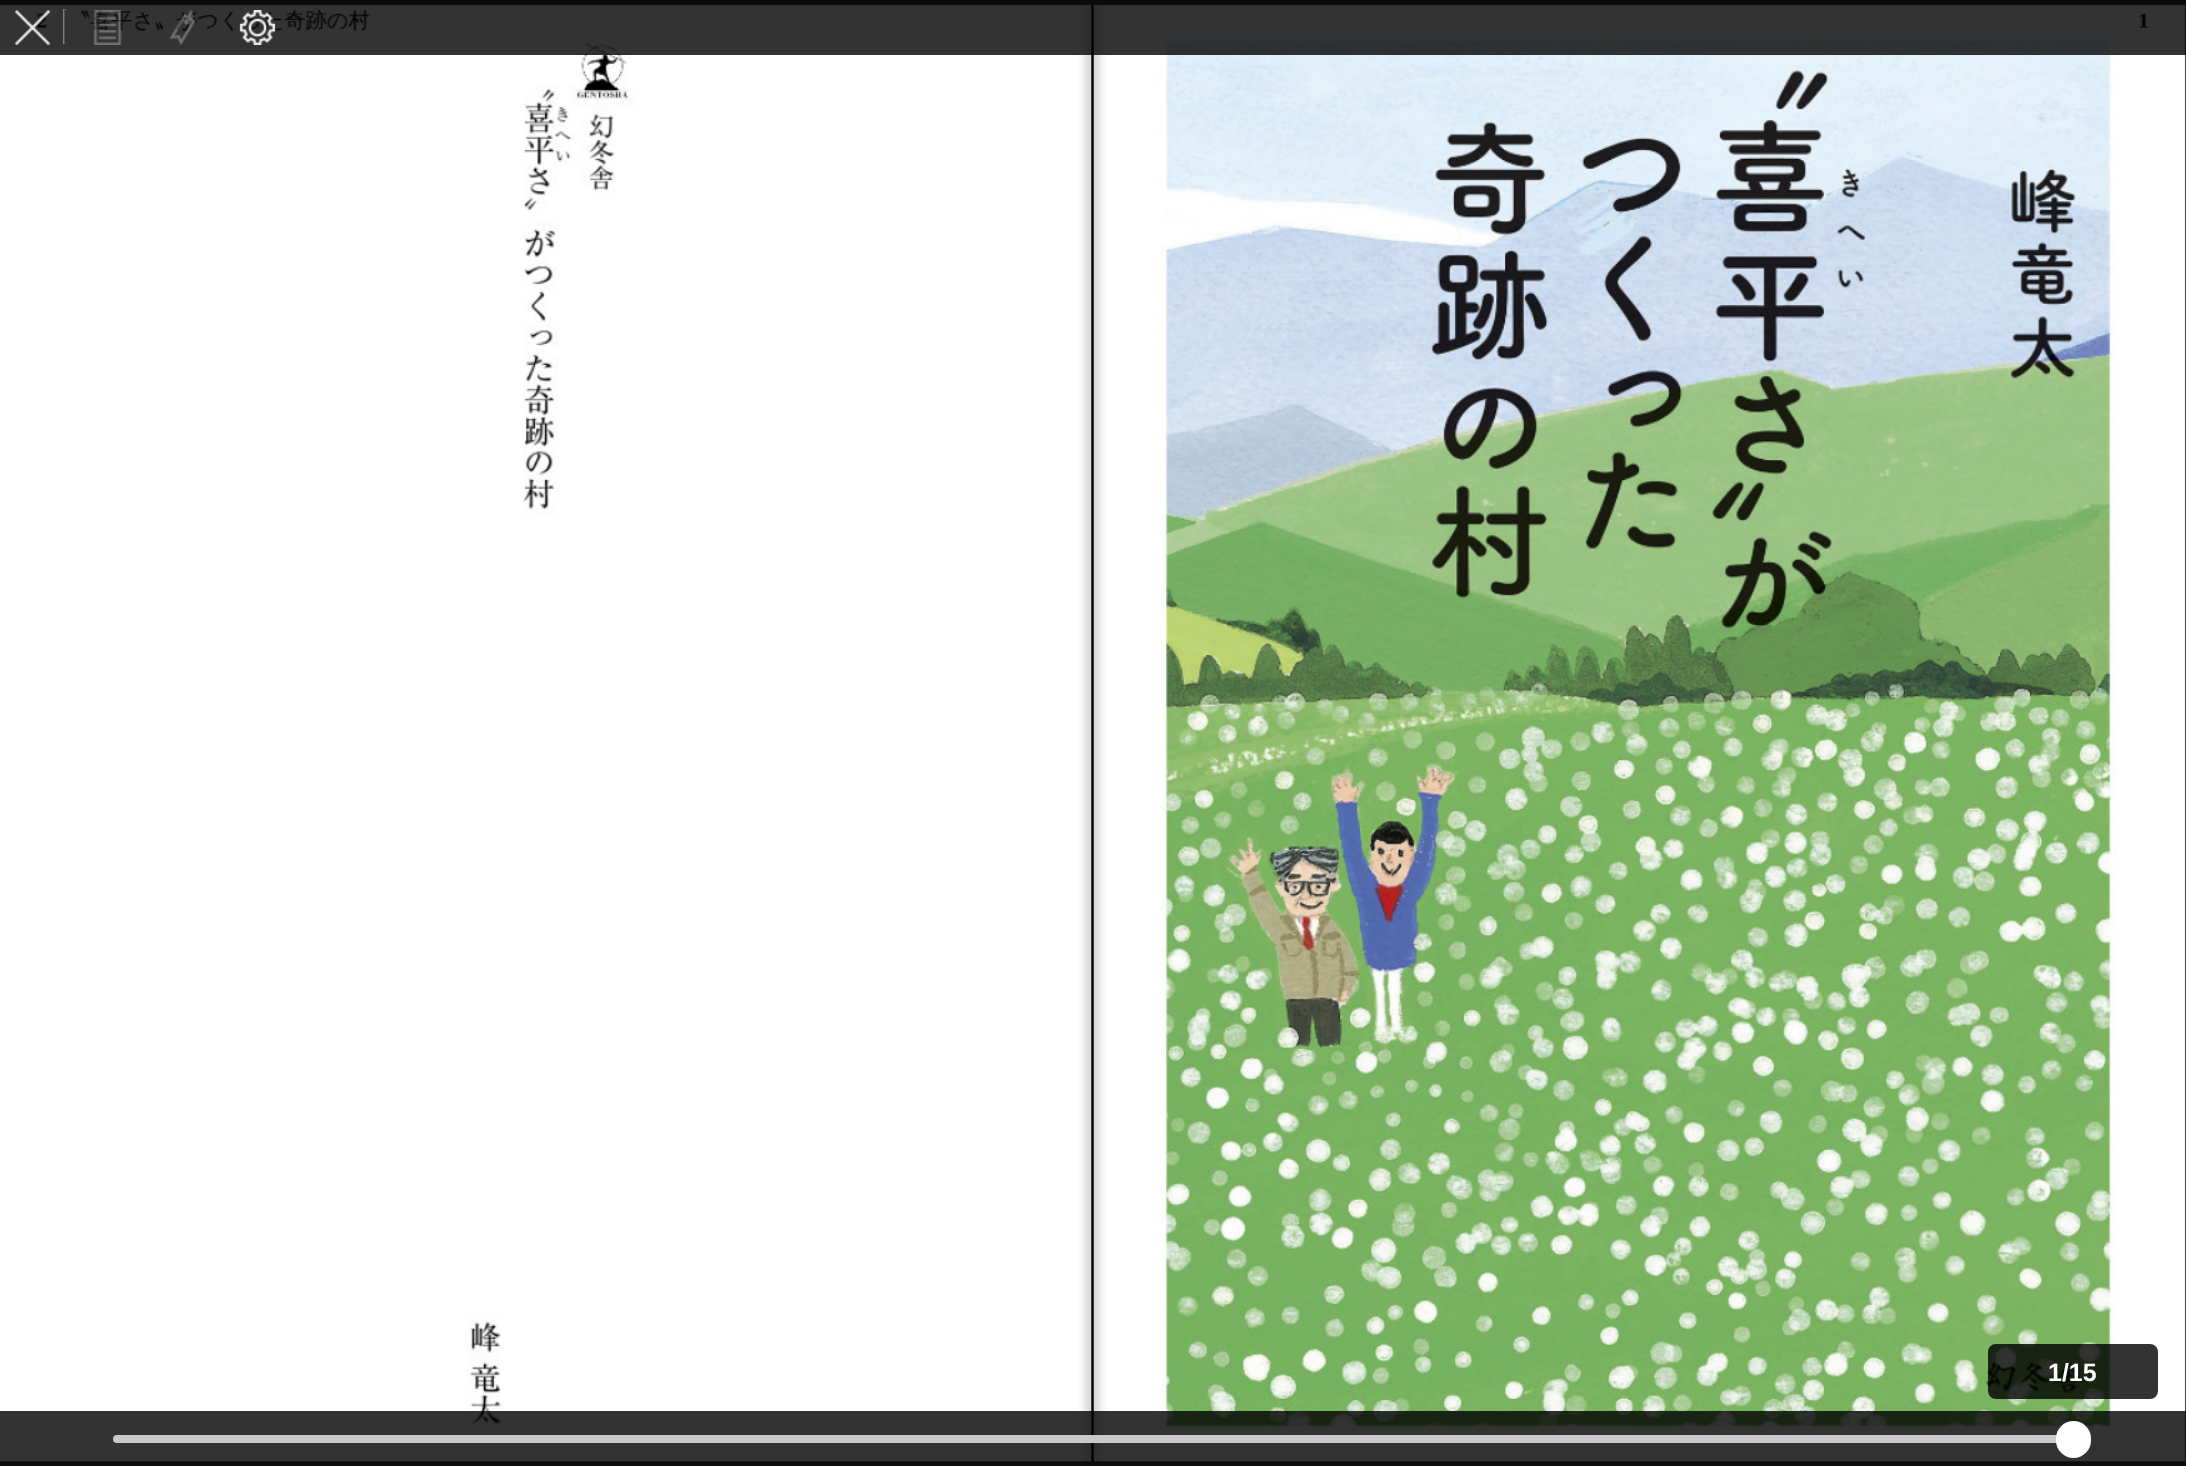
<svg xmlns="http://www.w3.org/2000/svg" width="2186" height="1466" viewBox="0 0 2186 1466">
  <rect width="100%" height="100%" fill="#3b3b3b"/>
  <image x="0" y="4" width="2186" height="1458" href="img/5.png"/>
  <path d="M0 0h2186v55H0z" fill="#000000cc"/>
  <image x="14" y="10" width="37" height="35" href="img/1.png"/>
  <path d="M63 9h3v1H63z" fill="#808080"/>
  <path d="M64 9h1v35H64z" fill="#555"/>
  <path d="M63 43h3v1H63z" fill="#555"/>
  <path d="M63 9h1v35H63z" fill="#808080"/>
  <image x="93" y="10" width="29" height="35" href="img/2.png"/>
  <image x="169" y="10" width="28" height="35" href="img/3.png"/>
  <image x="239" y="10" width="37" height="35" href="img/4.png"/>
  <path d="M0 1411h2186v55H0z" fill="#000000cc"/>
  <rect x="113" y="1435" width="1961" height="8" rx="4" fill="#c9c9ca"/>
  <rect x="2056" y="1421" width="35" height="37" rx="17.5" fill="#fff"/>
  <rect x="1988" y="1344" width="170" height="55" rx="8" fill="#000000cc"/>
  <text x="2048" y="1381" font-family="Liberation Sans" font-size="25" font-weight="bold" fill="#fff">1/15</text>
</svg>
